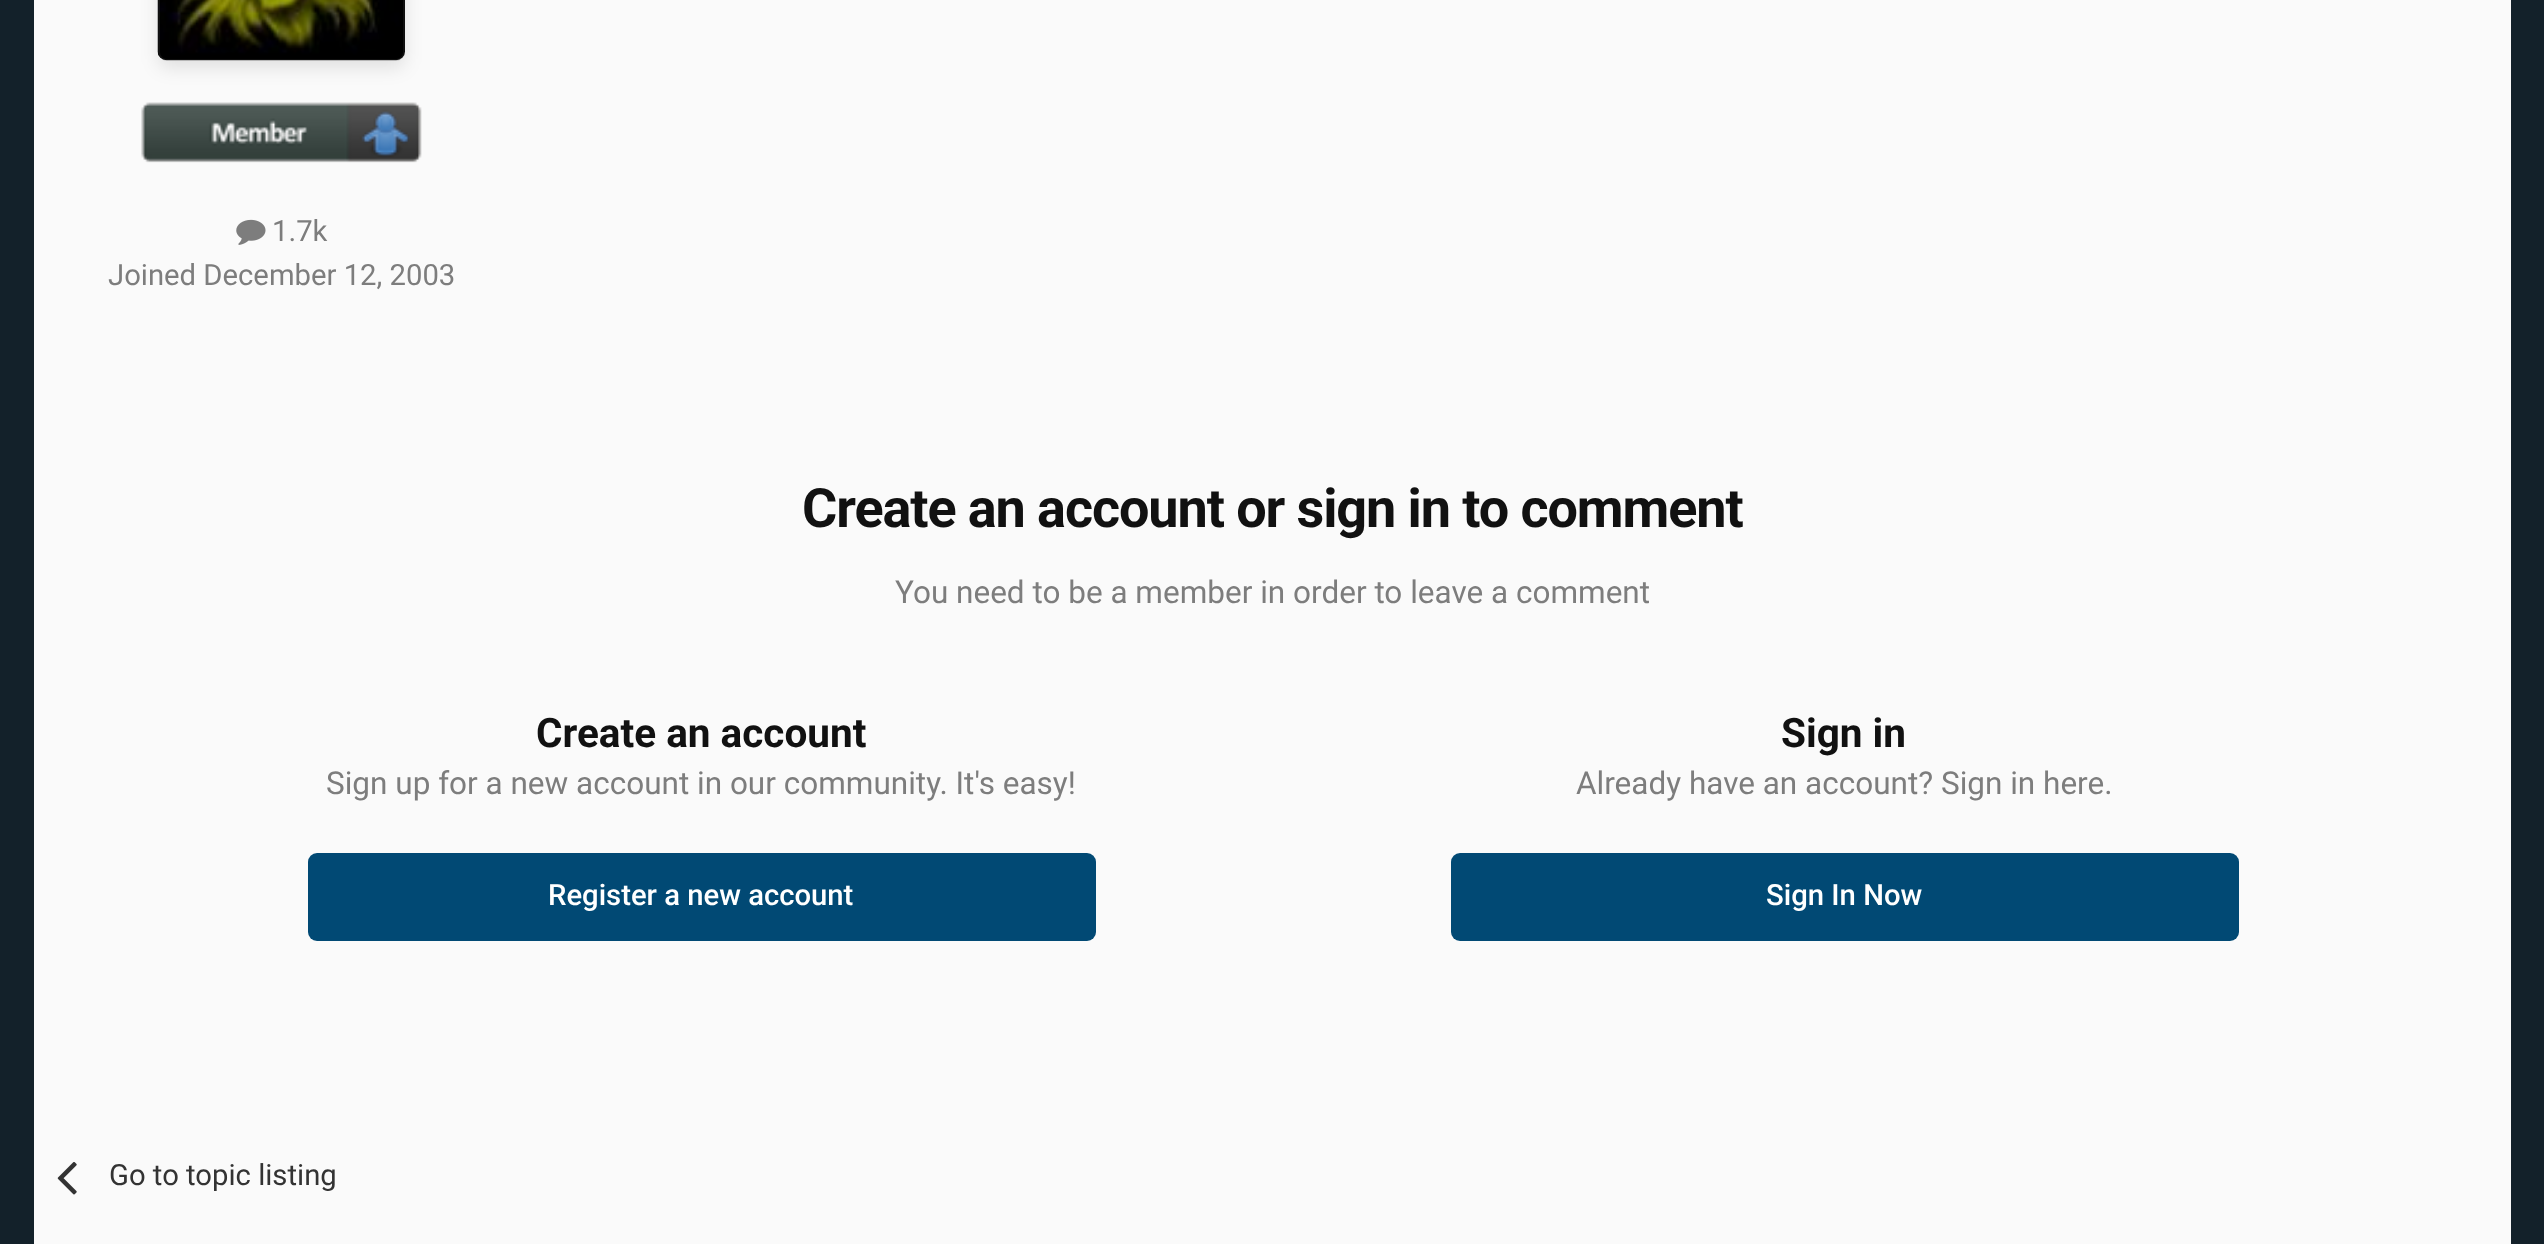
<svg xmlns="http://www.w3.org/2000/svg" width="2544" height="1244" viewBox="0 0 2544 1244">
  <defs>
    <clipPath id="clip1"><path d="M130 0H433V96H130ZM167-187H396C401-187 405-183 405-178V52C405 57 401 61 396 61H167C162 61 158 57 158 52V-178C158-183 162-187 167-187Z" clip-rule="evenodd"/></clipPath>
  </defs>
  <rect width="100%" height="100%" fill="#13212a"/>
  <path d="M34 0h2477v1244H34z" fill="#fafafa"/>
  <rect x="158" y="-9" width="247" height="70" rx="9" fill="#fff"/>
  <image x="157" y="0" width="248" height="61" href="img/1.png"/>
  <g clip-path="url(#clip1)">
    <rect x="158" y="-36" width="247" height="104" rx="9" fill="#0000001a" filter="blur(9px)"/>
  </g>
  <rect x="159" y="-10" width="245" height="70" rx="8" fill="none" stroke="#3333334d" stroke-width="2"/>
  <image x="141" y="102" width="281" height="61" href="img/2.png"/>
  <image x="236" y="219" width="30" height="26" href="img/3.png"/>
  <rect x="308" y="853" width="788" height="88" rx="9" fill="#014974"/>
  <rect x="1451" y="853" width="788" height="88" rx="9" fill="#014974"/>
  <image x="57" y="1162" width="20" height="33" href="img/4.png"/>
  <g font-family="Roboto" font-size="29.25" fill="#7d7d7d">
    <text x="272" y="241">1.7k</text>
    <text x="108" y="285">Joined December 12, 2003</text>
  </g>
  <text x="802" y="527" font-family="Roboto" font-size="54" font-weight="bold" letter-spacing="-1.1" fill="#111">Create an account or sign in to comment</text>
  <text x="895" y="603" font-family="Roboto" font-size="31.5" fill="#7d7d7d">You need to be a member in order to leave a comment</text>
  <text x="536" y="747" font-family="Roboto" font-size="40.5" font-weight="bold" fill="#111">Create an account</text>
  <text x="326" y="794" font-family="Roboto" font-size="31.5" fill="#7d7d7d">Sign up for a new account in our community. It's easy!</text>
  <text x="548" y="905" font-family="Roboto" font-size="29.25" font-weight="500" fill="#fff">Register a new account</text>
  <text x="1781" y="747" font-family="Roboto" font-size="40.5" font-weight="bold" fill="#111">Sign in</text>
  <text x="1576" y="794" font-family="Roboto" font-size="31.5" fill="#7d7d7d">Already have an account? Sign in here.</text>
  <text x="1766" y="905" font-family="Roboto" font-size="29.25" font-weight="500" fill="#fff">Sign In Now</text>
  <text x="109" y="1185" font-family="Roboto" font-size="29.25" fill="#333">Go to topic listing</text>
</svg>
